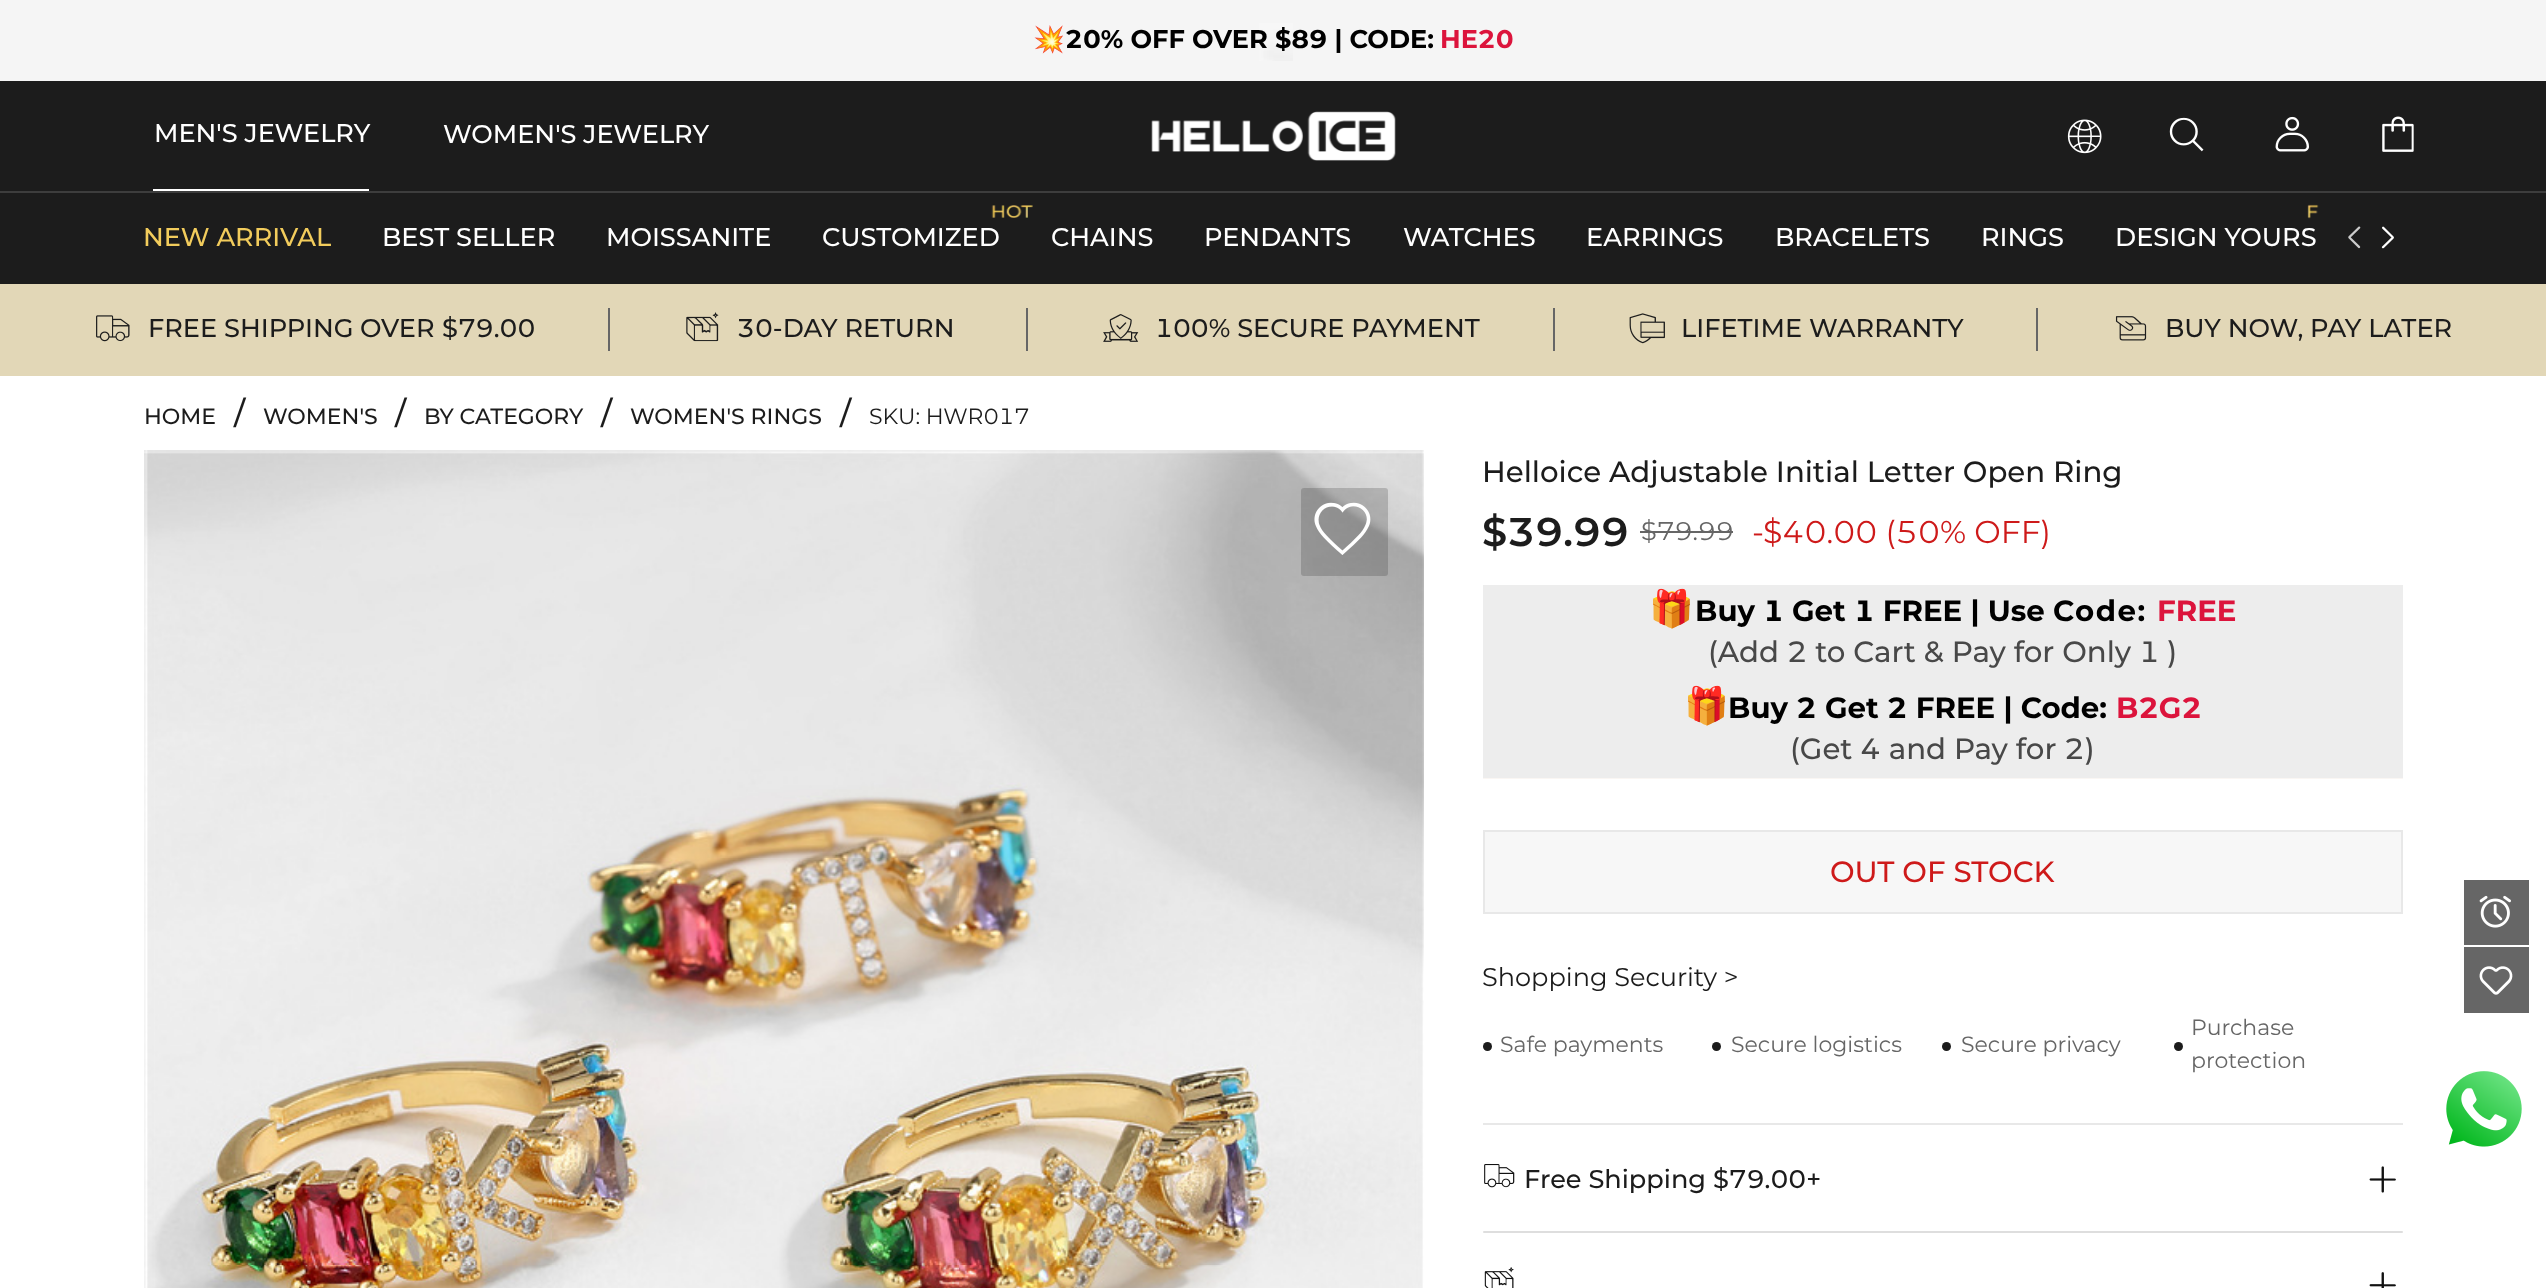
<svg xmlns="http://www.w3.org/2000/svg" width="2546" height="1288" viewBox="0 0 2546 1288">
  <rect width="100%" height="100%" fill="#fff"/>
  <path d="M0 0h2546v81H0z" fill="#f5f5f5"/>
  <image x="1259" y="23" width="34" height="38" href="img/1.png"/>
  <path d="M0 81h2546v203H0z" fill="#1c1c1c"/>
  <path d="M0 191h2546v2H0z" fill="#3d3d3d"/>
  <path d="M153 189h216v2H153z" fill="#fff"/>
  <image x="1151" y="111" width="245" height="50" href="img/2.png"/>
  <image x="2067" y="119" width="35" height="35" href="img/3.png"/>
  <image x="2169" y="117" width="35" height="35" href="img/4.png"/>
  <image x="2275" y="116" width="34" height="36" href="img/5.png"/>
  <image x="2382" y="116" width="32" height="36" href="img/6.png"/>
  <image x="991" y="205" width="42" height="13" href="img/7.png"/>
  <image x="2307" y="204" width="12" height="15" href="img/8.png"/>
  <image x="2348" y="226" width="13" height="23" href="img/9.png"/>
  <image x="2381" y="226" width="13" height="23" href="img/10.png"/>
  <path d="M0 284h2546v92H0z" fill="#e2d7b7"/>
  <path d="M608 308h2v43H608z" fill="#666"/>
  <image x="96" y="315" width="34" height="27" href="img/11.png"/>
  <path d="M1026 308h2v43H1026z" fill="#666"/>
  <image x="686" y="312" width="33" height="30" href="img/12.png"/>
  <path d="M1553 308h2v43H1553z" fill="#666"/>
  <image x="1103" y="314" width="36" height="28" href="img/13.png"/>
  <path d="M2036 308h2v43H2036z" fill="#666"/>
  <image x="1629" y="313" width="36" height="31" href="img/14.png"/>
  <image x="2115" y="316" width="32" height="25" href="img/15.png"/>
  <image x="144" y="450" width="1280" height="838" href="img/16.png"/>
  <rect x="1301" y="488" width="87" height="88" rx="3" fill="#1c1c1c33"/>
  <image x="1314" y="502" width="57" height="53" href="img/17.png"/>
  <path d="M1640 531h93v2H1640z" fill="#666"/>
  <path d="M1483 778h920v1H1483z" fill="#faf6f3"/>
  <path d="M1483 585h920v193H1483z" fill="#ededed"/>
  <path d="M1484 831h918v82H1484z" fill="#f7f7f7" stroke="#e8e8e8" stroke-width="2"/>
  <circle cx="1487.5" cy="1046.5" r="4.5" fill="#1c1c1c"/>
  <circle cx="1716.5" cy="1046.5" r="4.5" fill="#1c1c1c"/>
  <circle cx="1946.5" cy="1046.5" r="4.5" fill="#1c1c1c"/>
  <circle cx="2178.5" cy="1046.5" r="4.5" fill="#1c1c1c"/>
  <path d="M1483 1123h920v2H1483z" fill="#e8e8e8"/>
  <image x="1484" y="1164" width="31" height="24" href="img/18.png"/>
  <image x="2369" y="1166" width="27" height="27" href="img/19.png"/>
  <rect x="1483" y="1231" width="920" height="2" rx="1" fill="#dedede"/>
  <image x="1484" y="1267" width="30" height="21" href="img/20.png"/>
  <image x="2369" y="1272" width="27" height="16" href="img/21.png"/>
  <path d="M2464 880h65v65H2464z" fill="#666"/>
  <image x="2479" y="895" width="32" height="33" href="img/22.png"/>
  <path d="M2464 947h65v66H2464z" fill="#666"/>
  <image x="2479" y="966" width="34" height="29" href="img/23.png"/>
  <image x="2446" y="1071" width="76" height="76" href="img/24.png"/>
  <text x="1033" y="48" font-family="Noto Color Emoji" font-size="25.6" font-weight="bold" fill="#000">💥</text>
  <text x="1065" y="48" font-family="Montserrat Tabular" font-size="25.6" font-weight="bold" fill="#000">20% OFF OVER $89 | CODE:</text>
  <text x="1440" y="48" font-family="Montserrat Tabular" font-size="25.6" font-weight="bold" fill="#dc143c">HE20</text>
  <g font-family="Montserrat" font-size="25.6" font-weight="500" fill="#fff">
    <text x="154" y="142">MEN'S JEWELRY</text>
    <text x="443" y="143">WOMEN'S JEWELRY</text>
  </g>
  <text x="143" y="246" font-family="Montserrat" font-size="25.6" font-weight="500" fill="#f2cc5c">NEW ARRIVAL</text>
  <g font-family="Montserrat" font-size="25.6" font-weight="500" fill="#fff">
    <text x="382" y="246">BEST SELLER</text>
    <text x="606" y="246">MOISSANITE</text>
    <text x="822" y="246">CUSTOMIZED</text>
    <text x="1051" y="246">CHAINS</text>
    <text x="1204" y="246">PENDANTS</text>
    <text x="1403" y="246">WATCHES</text>
    <text x="1586" y="246">EARRINGS</text>
    <text x="1775" y="246">BRACELETS</text>
    <text x="1981" y="246">RINGS</text>
    <text x="2115" y="246">DESIGN YOURS</text>
  </g>
  <g font-family="Montserrat" font-size="25.6" font-weight="500" fill="#1c1c1c">
    <text x="148" y="337">FREE SHIPPING</text>
    <text x="360" y="337">OVER</text>
  </g>
  <g font-family="Montserrat Tabular" font-size="25.6" font-weight="500" fill="#1c1c1c">
    <text x="442" y="337">$79.00</text>
    <text x="737" y="337">30-DAY RETURN</text>
    <text x="1155" y="337">100% SECURE PAYMENT</text>
  </g>
  <g font-family="Montserrat" font-size="25.6" font-weight="500" fill="#1c1c1c">
    <text x="1681" y="337">LIFETIME WARRANTY</text>
    <text x="2165" y="337">BUY NOW, PAY LATER</text>
  </g>
  <text x="144" y="424" font-family="Montserrat" font-size="22" font-weight="500" fill="#1c1c1c">HOME</text>
  <text x="234" y="424" font-family="Montserrat" font-size="31.5" font-weight="500" fill="#1c1c1c">/</text>
  <text x="263" y="424" font-family="Montserrat" font-size="22" font-weight="500" fill="#1c1c1c">WOMEN'S</text>
  <text x="395" y="424" font-family="Montserrat" font-size="31.5" font-weight="500" fill="#1c1c1c">/</text>
  <text x="424" y="424" font-family="Montserrat" font-size="22" font-weight="500" fill="#1c1c1c">BY CATEGORY</text>
  <text x="601" y="424" font-family="Montserrat" font-size="31.5" font-weight="500" fill="#1c1c1c">/</text>
  <text x="630" y="424" font-family="Montserrat" font-size="22" font-weight="500" fill="#1c1c1c">WOMEN'S RINGS</text>
  <text x="840" y="424" font-family="Montserrat" font-size="31.5" font-weight="500" fill="#1c1c1c">/</text>
  <text x="869" y="424" font-family="Montserrat Tabular" font-size="22" fill="#1c1c1c">SKU: HWR017</text>
  <text x="1482" y="482" font-family="Montserrat" font-size="29.25" font-weight="500" fill="#1c1c1c">Helloice Adjustable Initial Letter Open Ring</text>
  <text x="1482" y="546" font-family="Montserrat Tabular" font-size="40" font-weight="600" fill="#1c1c1c">$39.99</text>
  <text x="1641" y="540" font-family="Montserrat Tabular" font-size="25.6" fill="#666">$79.99</text>
  <text x="1752" y="543" font-family="Montserrat" font-size="31.5" fill="#ce1a1a">-</text>
  <text x="1763" y="543" font-family="Montserrat Tabular" font-size="31.5" fill="#ce1a1a">$40.00 (50% OFF)</text>
  <text x="1649" y="621" font-family="Noto Color Emoji" font-size="36" font-weight="bold" letter-spacing="1.5" fill="#484848">🎁</text>
  <text x="1695" y="621" font-family="Montserrat Tabular" font-size="29.25" font-weight="bold" fill="#000">Buy 1 Get 1 FREE | Use</text>
  <text x="2053" y="621" font-family="Montserrat" font-size="29.25" font-weight="bold" letter-spacing="1.5" fill="#000">Code:</text>
  <text x="2157" y="621" font-family="Montserrat" font-size="29.25" font-weight="bold" fill="#dc143c">FREE</text>
  <text x="1708" y="662" font-family="Montserrat Tabular" font-size="29.25" font-weight="500" fill="#484848">(Add 2 to Cart &amp; Pay for Only 1 )</text>
  <text x="1684" y="718" font-family="Noto Color Emoji" font-size="36" font-weight="bold" fill="#fff">🎁</text>
  <text x="1728" y="718" font-family="Montserrat Tabular" font-size="29.25" font-weight="bold" fill="#000">Buy 2 Get 2 FREE | Code:</text>
  <text x="2116" y="718" font-family="Montserrat Tabular" font-size="29.25" font-weight="bold" fill="#dc143c">B2G2</text>
  <text x="1790" y="759" font-family="Montserrat Tabular" font-size="29.25" font-weight="500" fill="#484848">(Get 4 and Pay for 2)</text>
  <text x="1830" y="882" font-family="Montserrat" font-size="29.25" font-weight="500" fill="#ce1a1a">OUT OF STOCK</text>
  <text x="1482" y="986" font-family="Montserrat" font-size="25.6" fill="#1c1c1c">Shopping Security &gt;</text>
  <g font-family="Montserrat" font-size="22" fill="#666">
    <text x="1500" y="1052">Safe payments</text>
    <text x="1731" y="1052">Secure logistics</text>
    <text x="1961" y="1052">Secure privacy</text>
    <text x="2191" y="1035">Purchase</text>
    <text x="2191" y="1068">protection</text>
  </g>
  <text x="1524" y="1188" font-family="Montserrat Tabular" font-size="25.6" font-weight="500" fill="#1c1c1c">Free Shipping $79.00+</text>
</svg>
